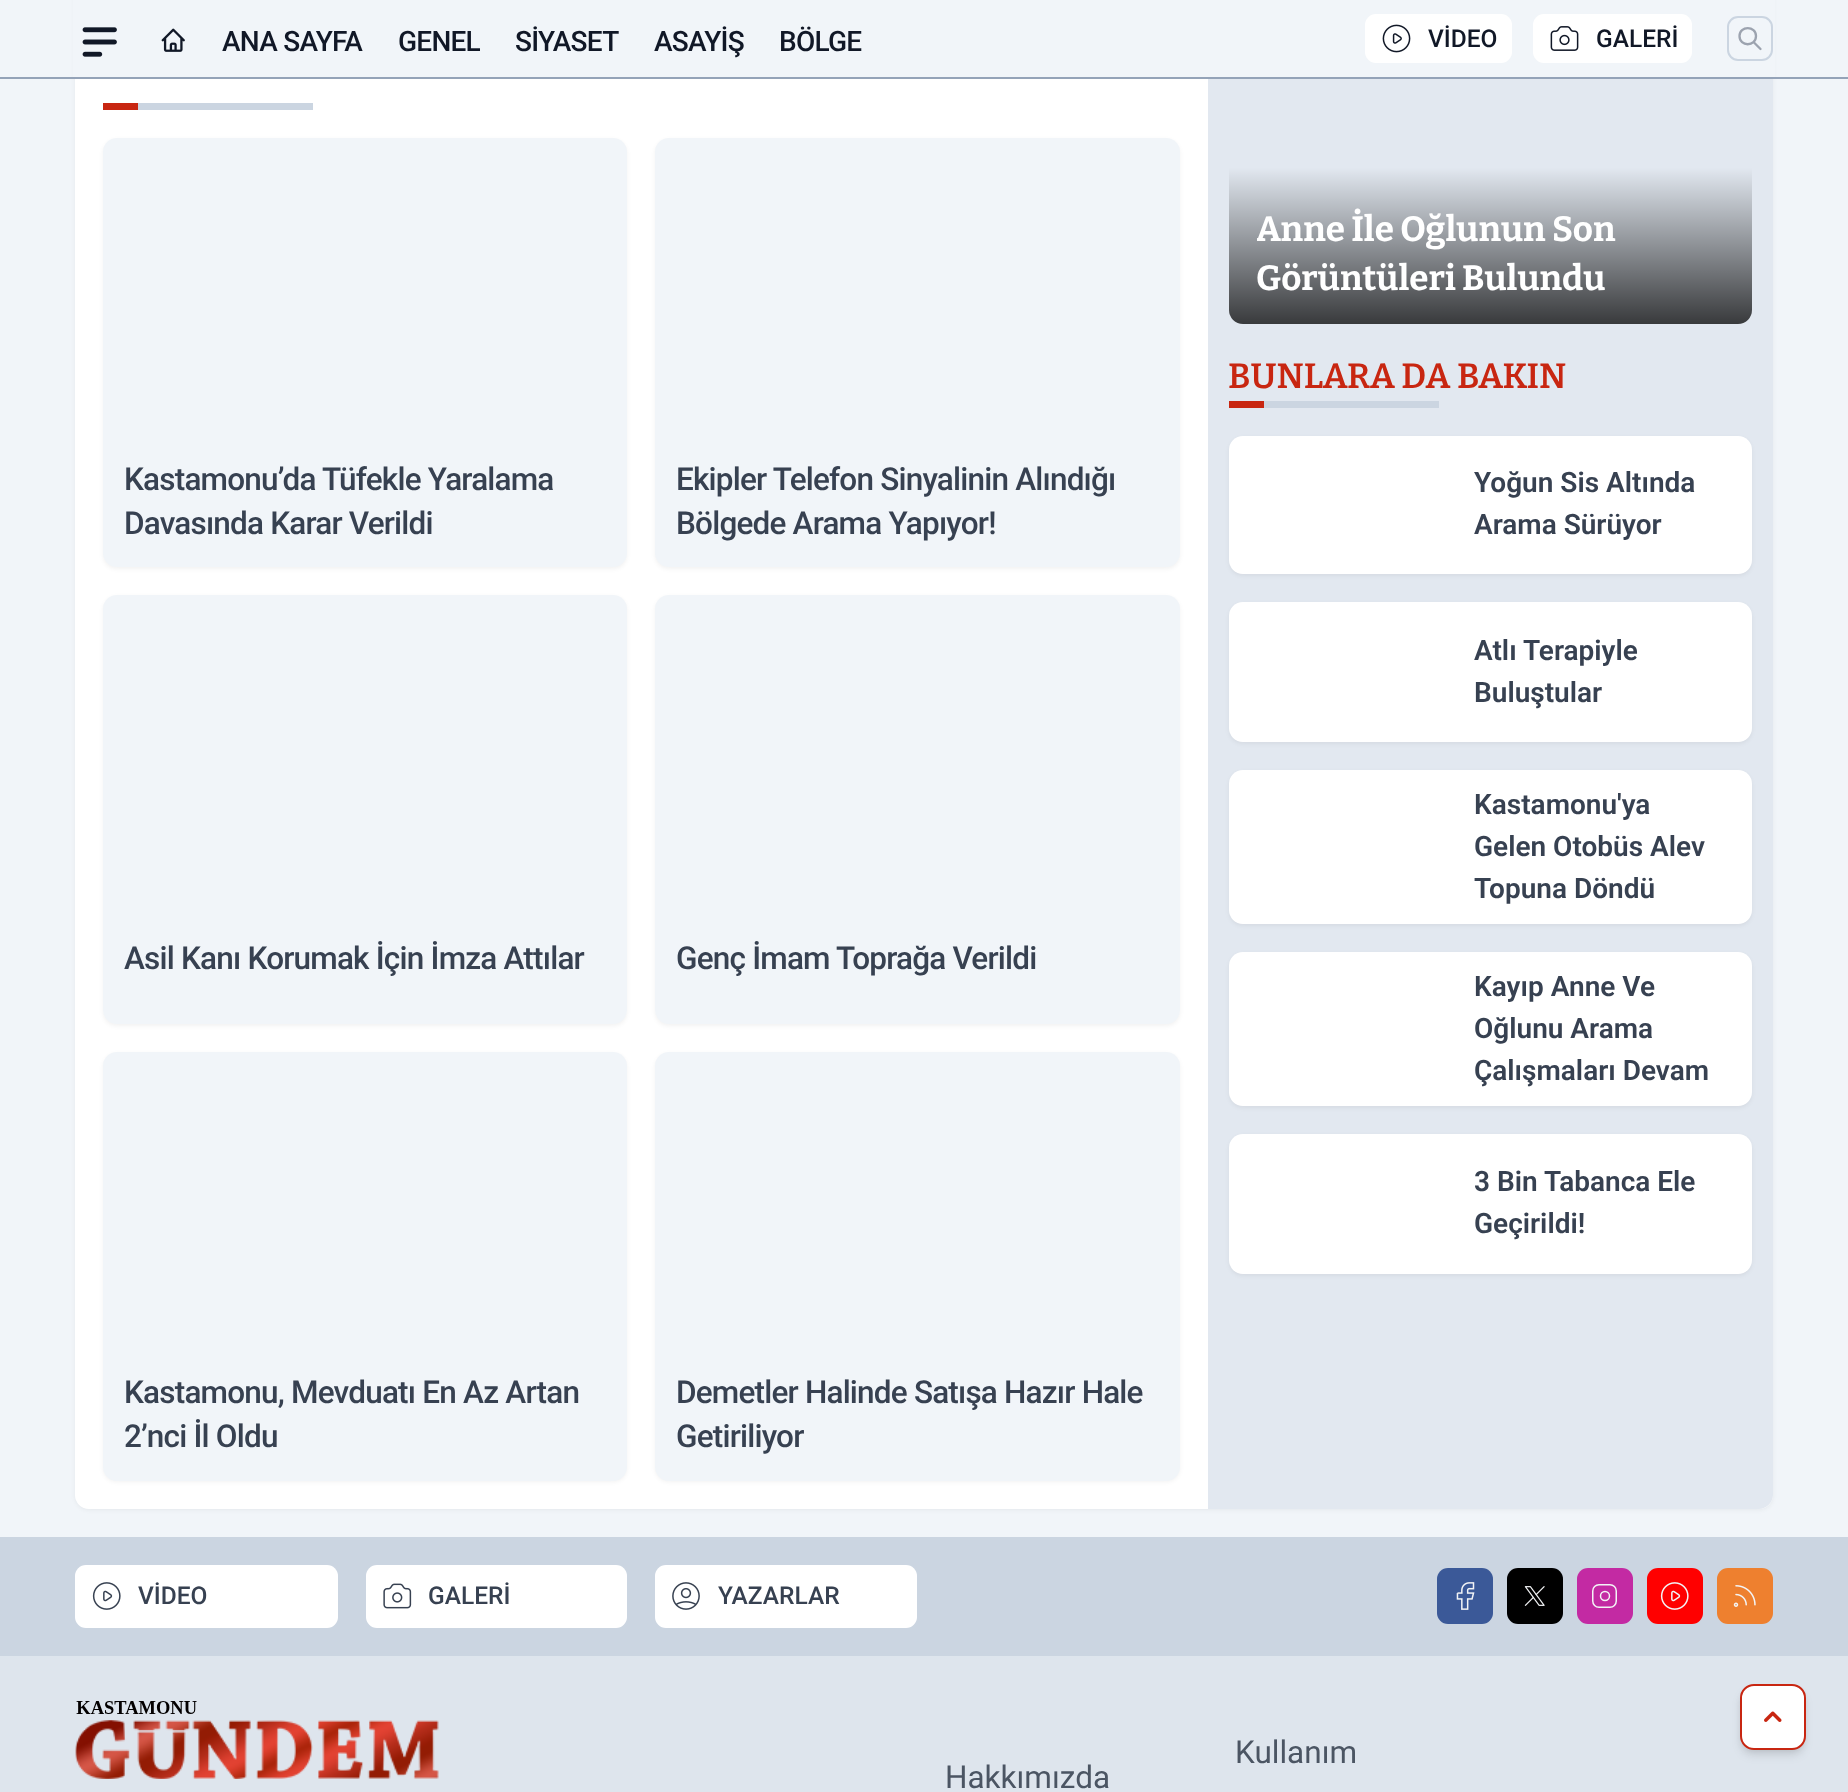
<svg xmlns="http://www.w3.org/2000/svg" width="1848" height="1792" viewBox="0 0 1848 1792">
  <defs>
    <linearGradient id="g1" gradientUnits="userSpaceOnUse" x1="1490" y1="324" x2="1490" y2="11"><stop offset="0" stop-color="#000" stop-opacity="0.75"/><stop offset="0.5" stop-color="#000" stop-opacity="0"/><stop offset="1" stop-color="#000" stop-opacity="0"/></linearGradient>
    <clipPath id="clip1"><path d="M1257 205h467v98H1257z"/></clipPath>
  </defs>
  <rect width="100%" height="100%" fill="#f1f5f9"/>
  <rect x="75" y="-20" width="1698" height="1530" rx="14" fill="#0000000d" filter="blur(2px)"/>
  <rect x="75" y="-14" width="1698" height="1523" rx="14" fill="#fff"/>
  <path d="M1208-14H1773V1495C1773 1502.5 1766.5 1509 1759 1509H1208Z" fill="#e2e8f0"/>
  <rect x="1229" y="11" width="523" height="313" rx="14" fill="url(#g1)"/>
  <path d="M73 0h1702v77H73z" fill="#f1f5f9"/>
  <path d="M0 77h1848v2H0z" fill="#94a3b8"/>
  <image x="82" y="27" width="35" height="30" href="img/1.png"/>
  <image x="161" y="28" width="24" height="24" href="img/2.png"/>
  <rect x="1365" y="14" width="147" height="49" rx="11" fill="#fff"/>
  <image x="1382" y="24" width="29" height="29" href="img/3.png"/>
  <rect x="1533" y="14" width="159" height="49" rx="11" fill="#fff"/>
  <image x="1550" y="26" width="29" height="25" href="img/4.png"/>
  <rect x="1728" y="17" width="44" height="43" rx="10" fill="none" stroke="#cbd5e1" stroke-width="2"/>
  <path d="M1760.5 49L1753.5 42M1756 36C1756 47 1739.5 47 1739.5 36C1739.5 25.5 1756 25.5 1756 36Z" fill="none" stroke="#9ca3af" stroke-width="2.3" stroke-linecap="round" stroke-linejoin="round"/>
  <path d="M103 103h35v7H103z" fill="#c82611"/>
  <path d="M138 103h175v7H138z" fill="#cbd5e1"/>
  <rect x="103" y="140" width="524" height="429" rx="14" fill="#0000000d" filter="blur(2px)"/>
  <rect x="103" y="138" width="524" height="429" rx="14" fill="#f1f5f9"/>
  <rect x="655" y="140" width="525" height="429" rx="14" fill="#0000000d" filter="blur(2px)"/>
  <rect x="655" y="138" width="525" height="429" rx="14" fill="#f1f5f9"/>
  <rect x="103" y="597" width="524" height="429" rx="14" fill="#0000000d" filter="blur(2px)"/>
  <rect x="103" y="595" width="524" height="429" rx="14" fill="#f1f5f9"/>
  <rect x="655" y="597" width="525" height="429" rx="14" fill="#0000000d" filter="blur(2px)"/>
  <rect x="655" y="595" width="525" height="429" rx="14" fill="#f1f5f9"/>
  <rect x="103" y="1054" width="524" height="428" rx="14" fill="#0000000d" filter="blur(2px)"/>
  <rect x="103" y="1052" width="524" height="429" rx="14" fill="#f1f5f9"/>
  <rect x="655" y="1054" width="525" height="428" rx="14" fill="#0000000d" filter="blur(2px)"/>
  <rect x="655" y="1052" width="525" height="429" rx="14" fill="#f1f5f9"/>
  <path d="M1229 401h35v7H1229z" fill="#c82611"/>
  <path d="M1264 401h175v7H1264z" fill="#cbd5e1"/>
  <rect x="1229" y="438" width="523" height="138" rx="14" fill="#0000000d" filter="blur(2px)"/>
  <rect x="1229" y="436" width="523" height="138" rx="14" fill="#fff"/>
  <rect x="1229" y="604" width="523" height="140" rx="14" fill="#0000000d" filter="blur(2px)"/>
  <rect x="1229" y="602" width="523" height="140" rx="14" fill="#fff"/>
  <rect x="1229" y="772" width="523" height="154" rx="14" fill="#0000000d" filter="blur(2px)"/>
  <rect x="1229" y="770" width="523" height="154" rx="14" fill="#fff"/>
  <rect x="1229" y="954" width="523" height="154" rx="14" fill="#0000000d" filter="blur(2px)"/>
  <rect x="1229" y="952" width="523" height="154" rx="14" fill="#fff"/>
  <rect x="1229" y="1136" width="523" height="140" rx="14" fill="#0000000d" filter="blur(2px)"/>
  <rect x="1229" y="1134" width="523" height="140" rx="14" fill="#fff"/>
  <path d="M0 1537h1848v119H0z" fill="#cbd5e1"/>
  <rect x="75" y="1565" width="263" height="63" rx="11" fill="#fff"/>
  <image x="92" y="1582" width="29" height="28" href="img/5.png"/>
  <rect x="366" y="1565" width="261" height="63" rx="11" fill="#fff"/>
  <image x="383" y="1583" width="29" height="26" href="img/6.png"/>
  <rect x="655" y="1565" width="262" height="63" rx="11" fill="#fff"/>
  <image x="672" y="1582" width="28" height="28" href="img/7.png"/>
  <rect x="1437" y="1568" width="56" height="56" rx="11" fill="#3b5998"/>
  <image x="1456" y="1582" width="19" height="28" href="img/8.png"/>
  <rect x="1507" y="1568" width="56" height="56" rx="11" fill="#000"/>
  <image x="1524" y="1586" width="21" height="20" href="img/9.png"/>
  <rect x="1577" y="1568" width="56" height="56" rx="11" fill="#c32aa3"/>
  <rect x="1592.75" y="1584.75" width="23.5" height="22.5" rx="6.25" fill="none" stroke="#f3f4f6" stroke-width="1.5"/>
  <circle cx="1605" cy="1596" r="4.5" fill="none" stroke="#f3f4f6" stroke-width="1.5"/>
  <rect x="1647" y="1568" width="56" height="56" rx="11" fill="#f00"/>
  <image x="1660" y="1582" width="29" height="28" href="img/10.png"/>
  <rect x="1717" y="1568" width="56" height="56" rx="11" fill="#ee802f"/>
  <image x="1733" y="1585" width="23" height="22" href="img/11.png"/>
  <path d="M0 1656h1848v136H0z" fill="#dee5ed"/>
  <image x="75" y="1701" width="364" height="78" href="img/12.png"/>
  <rect x="1743" y="1691" width="60" height="59" rx="11" fill="#0000001a" filter="blur(3.5px)"/>
  <rect x="1741" y="1692" width="63" height="63" rx="12" fill="#0000001a" filter="blur(5px)"/>
  <rect x="1741" y="1685" width="64" height="64" rx="13" fill="#fff" stroke="#c82611" stroke-width="2"/>
  <image x="1764" y="1711" width="18" height="11" href="img/13.png"/>
  <g font-family="Roboto" font-size="28" font-weight="500" letter-spacing="-0.75" fill="#111827">
    <text x="222" y="51">ANA SAYFA</text>
    <text x="398" y="51">GENEL</text>
    <text x="515" y="51">SİYASET</text>
    <text x="654" y="51">ASAYİŞ</text>
    <text x="779" y="51">BÖLGE</text>
  </g>
  <g font-family="Roboto" font-size="24.5" font-weight="500" fill="#111827">
    <text x="1428" y="47">VİDEO</text>
    <text x="1596" y="47">GALERİ</text>
  </g>
  <g font-family="Roboto" font-size="31.5" font-weight="500" letter-spacing="-0.8" fill="#374151">
    <text x="124" y="490">Kastamonu’da Tüfekle Yaralama</text>
    <text x="124" y="534">Davasında Karar Verildi</text>
    <text x="676" y="490">Ekipler Telefon Sinyalinin Alındığı</text>
    <text x="676" y="534">Bölgede Arama Yapıyor!</text>
    <text x="124" y="969">Asil Kanı Korumak İçin İmza Attılar</text>
    <text x="676" y="969">Genç İmam Toprağa Verildi</text>
    <text x="124" y="1403">Kastamonu, Mevduatı En Az Artan</text>
    <text x="124" y="1447">2’nci İl Oldu</text>
    <text x="676" y="1403">Demetler Halinde Satışa Hazır Hale</text>
    <text x="676" y="1447">Getiriliyor</text>
  </g>
  <g clip-path="url(#clip1)">
    <text x="1256" y="241" font-family="Bitter" font-size="35" font-weight="100" fill="#fff">Anne İle Oğlunun Son</text>
  </g>
  <text x="1256" y="290" font-family="Bitter" font-size="35" font-weight="100" fill="#fff">Görüntüleri Bulundu</text>
  <text x="1228" y="388" font-family="'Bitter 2'" font-size="35" font-weight="100" fill="#c82611">BUNLARA DA BAKIN</text>
  <g font-family="Roboto" font-size="28" font-weight="600" fill="#374151">
    <text x="1474" y="492">Yoğun Sis Altında</text>
    <text x="1474" y="534">Arama Sürüyor</text>
    <text x="1474" y="660">Atlı Terapiyle</text>
    <text x="1474" y="702">Buluştular</text>
    <text x="1474" y="814">Kastamonu'ya</text>
    <text x="1474" y="856">Gelen Otobüs Alev</text>
    <text x="1474" y="898">Topuna Döndü</text>
    <text x="1474" y="996">Kayıp Anne Ve</text>
    <text x="1474" y="1038">Oğlunu Arama</text>
    <text x="1474" y="1080">Çalışmaları Devam</text>
    <text x="1474" y="1191">3 Bin Tabanca Ele</text>
    <text x="1474" y="1233">Geçirildi!</text>
  </g>
  <g font-family="Roboto" font-size="24.5" font-weight="500" fill="#374151">
    <text x="138" y="1604">VİDEO</text>
    <text x="428" y="1604">GALERİ</text>
    <text x="718" y="1604">YAZARLAR</text>
  </g>
  <g font-family="Roboto" font-size="31.5" fill="#4b5563">
    <text x="1235" y="1763">Kullanım</text>
    <text x="945" y="1788">Hakkımızda</text>
  </g>
</svg>
